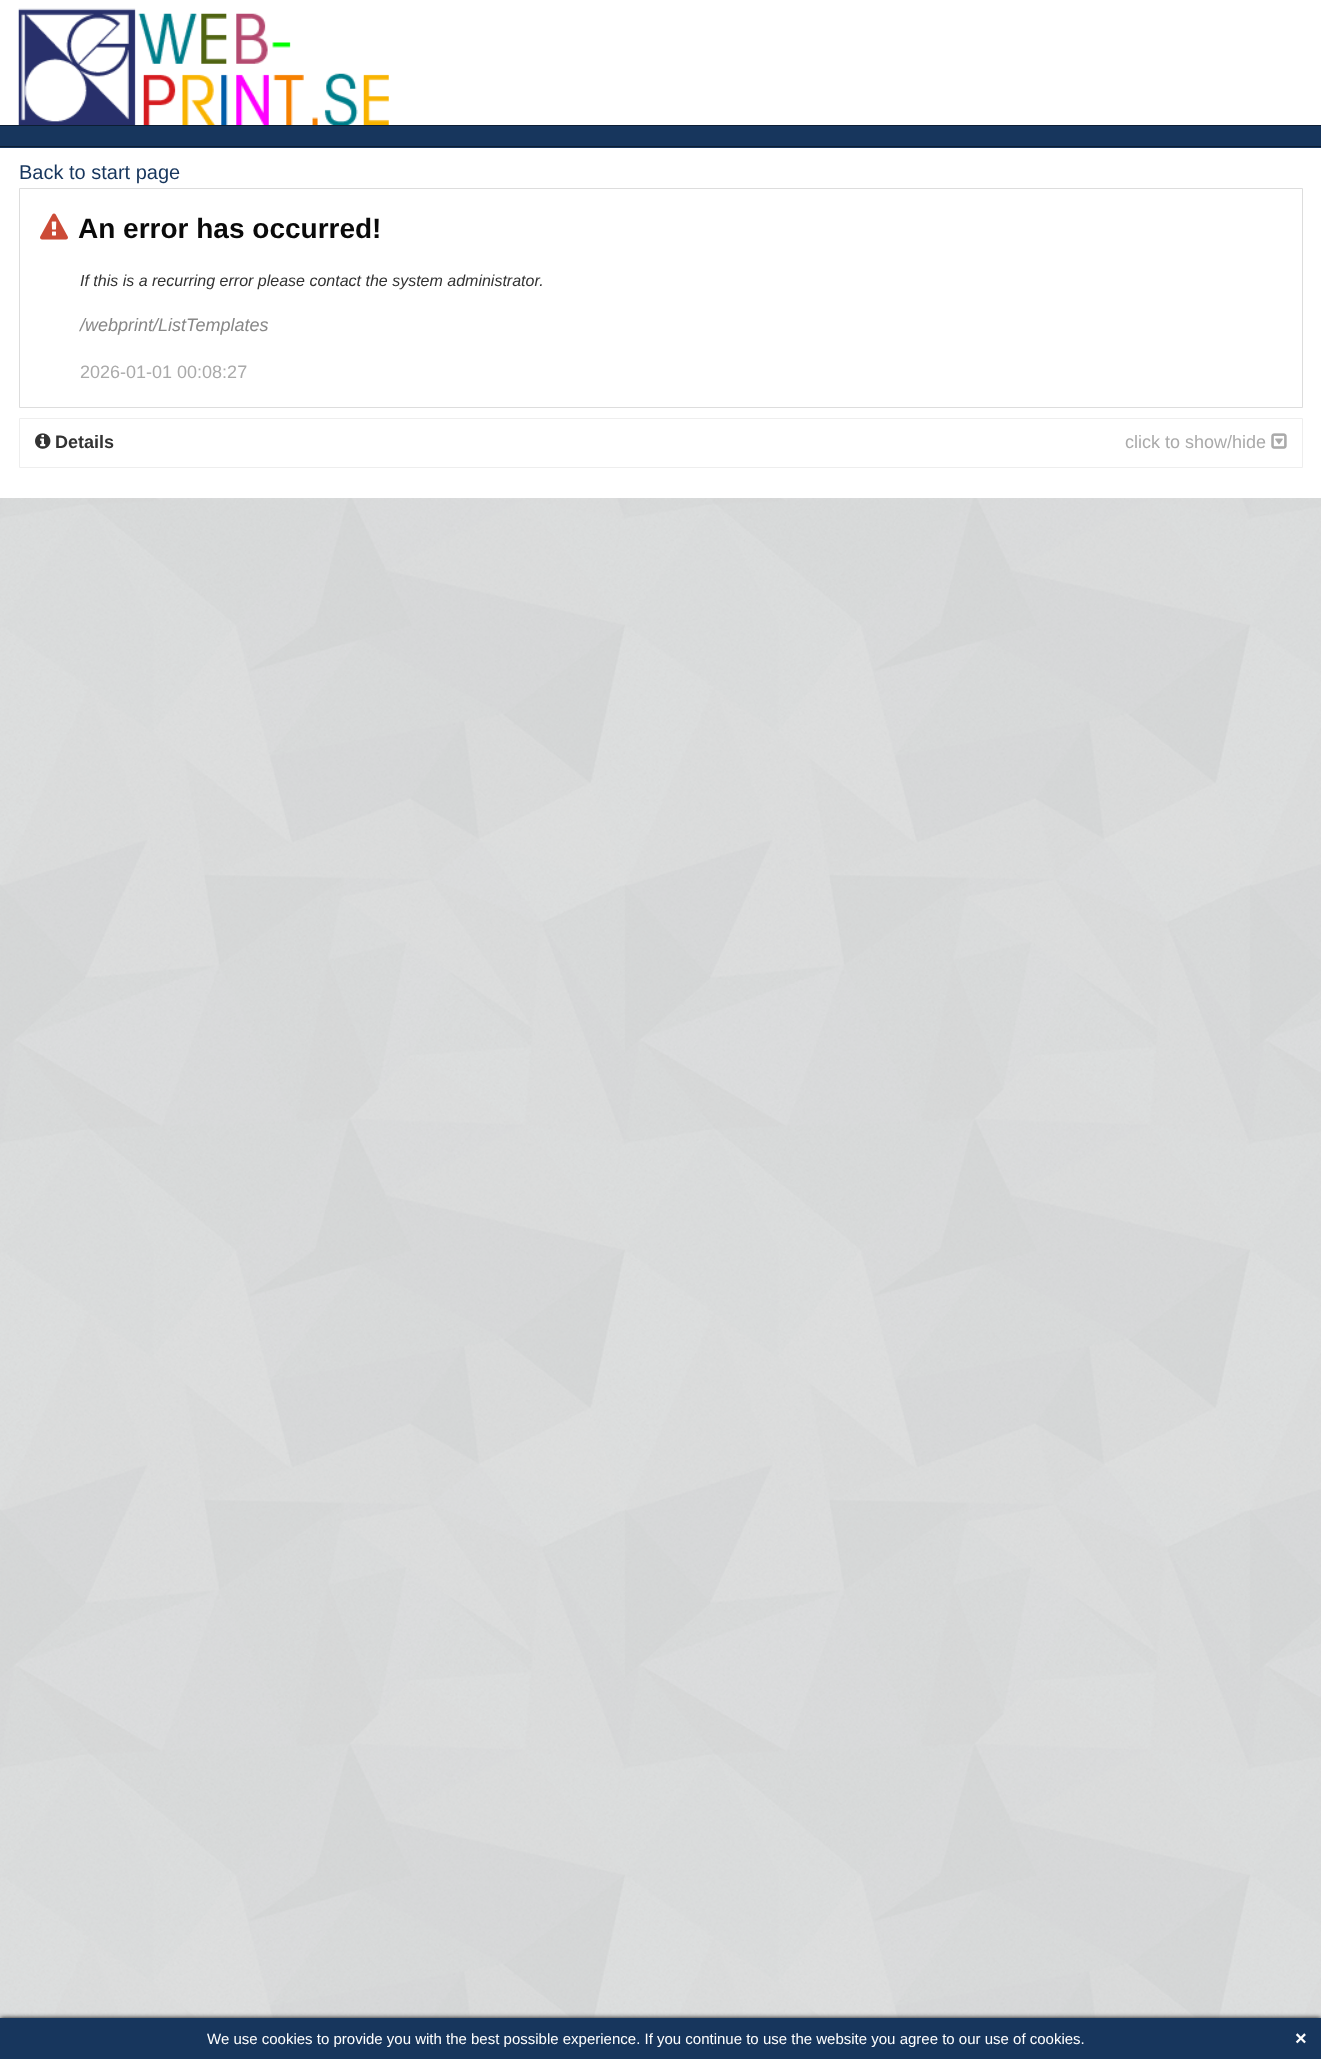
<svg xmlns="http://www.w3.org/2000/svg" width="1321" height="2059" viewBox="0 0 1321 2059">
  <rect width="100%" height="100%" fill="#fff"/>
  <image x="0" y="498" width="1321" height="1520" href="img/1.png"/>
  <image x="18" y="8" width="371" height="117" href="img/2.png"/>
  <path d="M0 126h1321v22H0z" fill="#17365d"/>
  <path d="M0 125h1321v1H0z" fill="#0d1e34"/>
  <path d="M0 146h1321v1H0z" fill="#0d1e34"/>
  <path d="M19.5 188.5h1283v219H19.5z" fill="none" stroke="#ddd"/>
  <image x="40" y="213" width="28" height="27" href="img/3.png"/>
  <path d="M19.5 418.5h1283v49H19.5z" fill="none" stroke="#eee"/>
  <image x="35" y="433" width="16" height="16" href="img/4.png"/>
  <image x="1271" y="433" width="16" height="16" href="img/5.png"/>
  <path d="M0 2018h1321v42H0z" fill="#010101" filter="blur(2.5px)"/>
  <path d="M0 2018h1321v41H0z" fill="#17365d"/>
  <text x="19" y="179" font-family="Liberation Sans" font-size="20" fill="#17365d">Back to start page</text>
  <text x="78" y="238" font-family="Liberation Sans" font-size="28" font-weight="bold" fill="#0a0a0a">An error has occurred!</text>
  <text x="80" y="286" font-family="Liberation Sans" font-size="16" font-style="italic" fill="#333">If this is a recurring error please contact the system administrator.</text>
  <text x="80" y="331" font-family="Liberation Sans" font-size="18" font-style="italic" fill="#888">/webprint/ListTemplates</text>
  <text x="80" y="378" font-family="Liberation Sans" font-size="18" fill="#aaa">2026-01-01 00:08:27</text>
  <text x="55" y="448" font-family="Liberation Sans" font-size="18" font-weight="bold" fill="#333">Details</text>
  <text x="1125" y="448" font-family="Liberation Sans" font-size="18" fill="#aaa">click to show/hide</text>
  <text x="207" y="2044" font-family="Liberation Sans" font-size="15" fill="#fff">We use cookies to provide you with the best possible experience. If you continue to use the website you agree to our use of cookies.</text>
  <text x="1295" y="2045" font-family="Liberation Sans" font-size="20" font-weight="bold" fill="#fff">×</text>
</svg>
